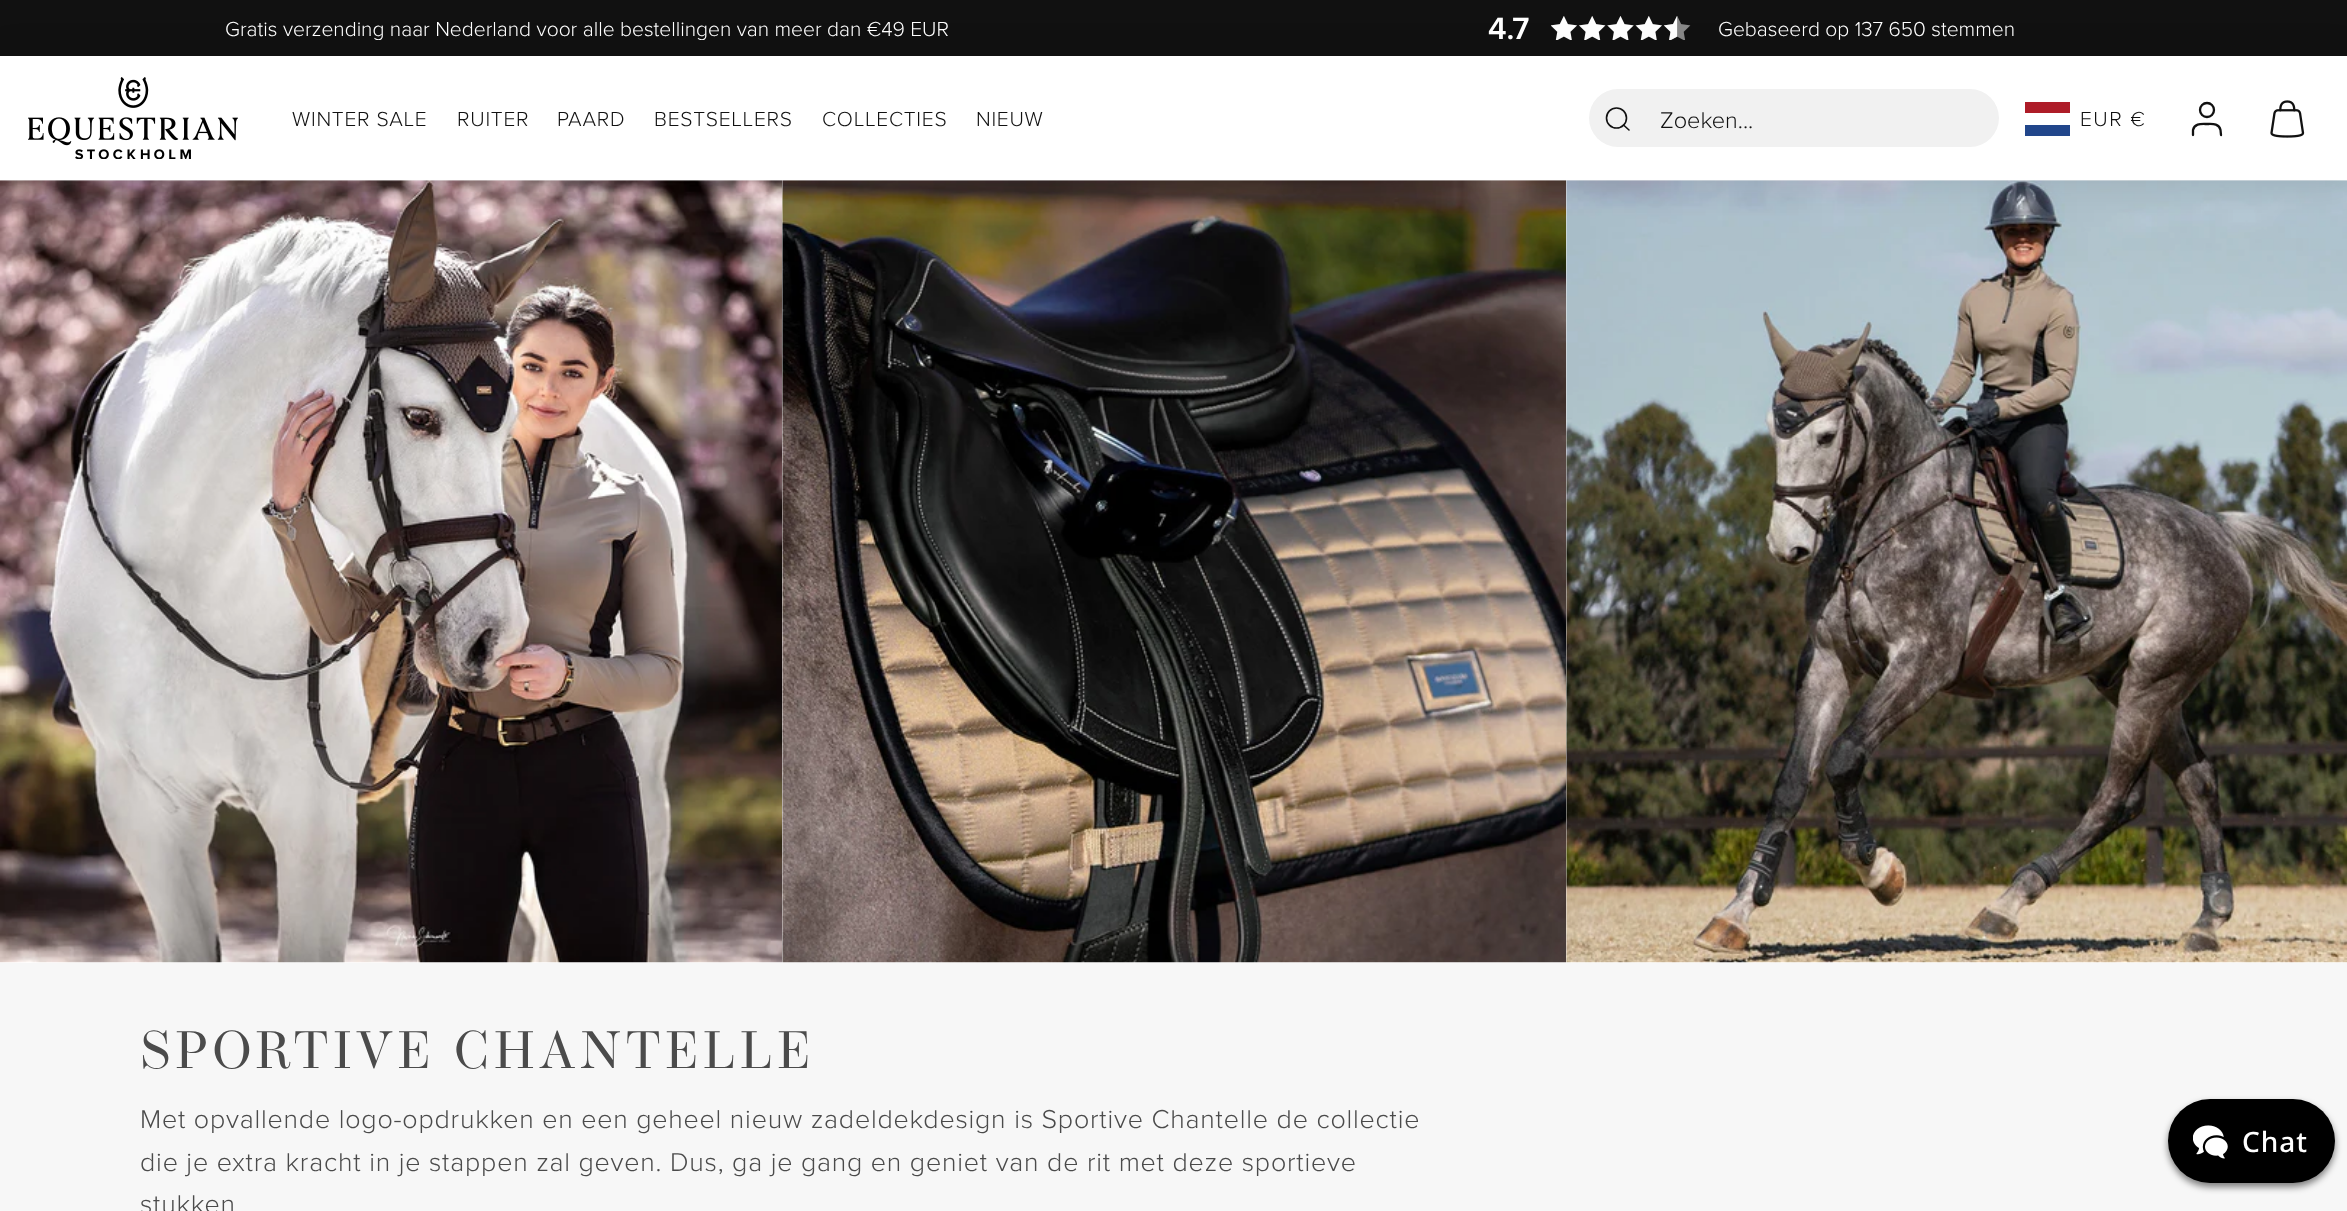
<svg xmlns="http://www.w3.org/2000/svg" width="2347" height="1211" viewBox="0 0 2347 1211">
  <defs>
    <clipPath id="clip1"><path d="M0 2H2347V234H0ZM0 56H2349V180H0Z" clip-rule="evenodd"/></clipPath>
  </defs>
  <rect width="100%" height="100%" fill="#fff"/>
  <path d="M0 0h2347v56H0z" fill="#111"/>
  <image x="1551" y="16" width="140" height="24" href="img/1.png"/>
  <image x="0" y="180" width="783" height="783" href="img/4.png"/>
  <image x="782" y="180" width="785" height="783" href="img/5.png"/>
  <image x="1566" y="180" width="781" height="783" href="img/6.png"/>
  <g clip-path="url(#clip1)">
    <path d="M0 56h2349v124H0z" fill="#0000001a" filter="blur(17.5px)"/>
  </g>
  <image x="28" y="77" width="210" height="82" href="img/2.png"/>
  <rect x="1589" y="89" width="410" height="58" rx="29" fill="#f1f1f1"/>
  <circle cx="1616.5" cy="118" r="10" fill="none" stroke="#111" stroke-width="1.6"/>
  <path d="M1629 130L1623.5 125" fill="none" stroke="#111" stroke-width="1.6" stroke-linecap="round" stroke-linejoin="round"/>
  <path d="M2025 125h45v11H2025z" fill="#21468b"/>
  <path d="M2025 102h45v11H2025z" fill="#ae1c28"/>
  <path d="M2221 135L2220.5 130C2219 123 2212 124 2207 124C2201.5 124 2194.5 123 2193 130V135" fill="none" stroke="#111" stroke-width="2.3" stroke-linecap="round" stroke-linejoin="round"/>
  <circle cx="2207" cy="110" r="7" fill="none" stroke="#111" stroke-width="2.3"/>
  <image x="2270" y="100" width="35" height="38" href="img/3.png"/>
  <path d="M0 963h2347v248H0z" fill="#f7f7f7"/>
  <rect x="2168" y="1103" width="167" height="84" rx="42" fill="#00000080" filter="blur(3.5px)"/>
  <rect x="2168" y="1099" width="167" height="84" rx="42" fill="#000"/>
  <image x="2193" y="1125" width="35" height="34" href="img/7.png"/>
  <text x="225" y="36" font-family="Proxima Nova" font-size="21" font-weight="300" fill="#fff">Gratis verzending naar Nederland voor alle bestellingen van meer dan €49 EUR</text>
  <text x="1488" y="39" font-family="Proxima Nova" font-size="32" font-weight="600" fill="#fff">4.7</text>
  <text x="1718" y="36" font-family="Proxima Nova" font-size="21" font-weight="300" fill="#fff">Gebaseerd op 137 650 stemmen</text>
  <g font-family="Proxima Nova" font-size="21" font-weight="300" letter-spacing="0.75" fill="#111">
    <text x="292" y="126">WINTER SALE</text>
    <text x="457" y="126">RUITER</text>
    <text x="557" y="126">PAARD</text>
    <text x="654" y="126">BESTSELLERS</text>
    <text x="822" y="126">COLLECTIES</text>
    <text x="976" y="126">NIEUW</text>
  </g>
  <text x="1660" y="128" font-family="Proxima Nova" font-size="23.5" font-weight="300" fill="#111">Zoeken...</text>
  <text x="2080" y="126" font-family="Proxima Nova" font-size="21" font-weight="300" letter-spacing="1.5" fill="#111">EUR €</text>
  <text x="140" y="1068" font-family="'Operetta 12'" font-size="52.5" letter-spacing="4.25" fill="#4b4b4b">SPORTIVE CHANTELLE</text>
  <g font-family="Proxima Nova" font-size="26.8" font-weight="300" letter-spacing="0.8" fill="#4b4b4b">
    <text x="140" y="1128">Met opvallende logo-opdrukken en een geheel nieuw zadeldekdesign is Sportive Chantelle de collectie</text>
    <text x="140" y="1171">die je extra kracht in je stappen zal geven. Dus, ga je gang en geniet van de rit met deze sportieve</text>
    <text x="140" y="1213">stukken</text>
  </g>
  <text x="2242" y="1152" font-family="Noto Sans" font-size="28" font-weight="500" letter-spacing="1" fill="#fff">Chat</text>
</svg>
